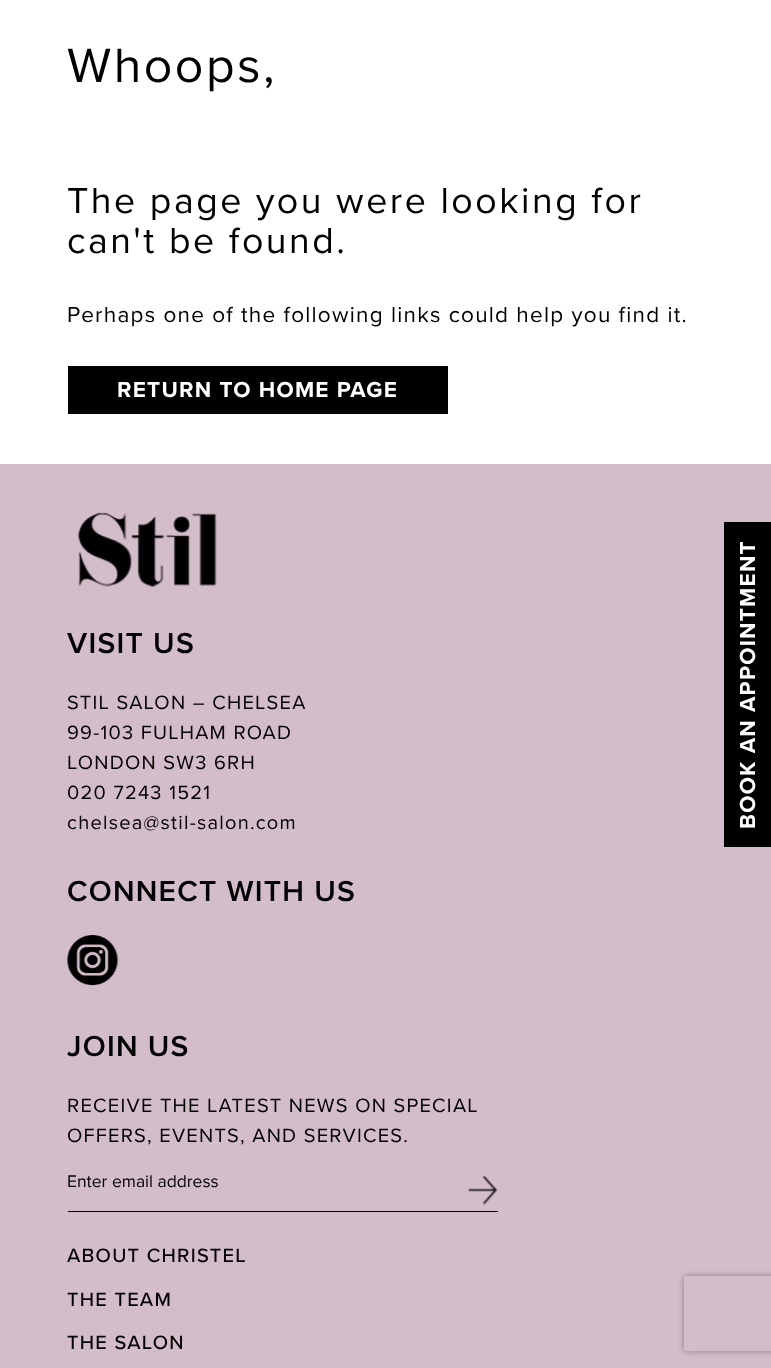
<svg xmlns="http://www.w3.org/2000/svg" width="771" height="1368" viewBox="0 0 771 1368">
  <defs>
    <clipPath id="clip1"><path d="M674 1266H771V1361H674ZM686.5 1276H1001.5C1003 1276 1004 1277 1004 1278.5V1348.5C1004 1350 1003 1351 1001.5 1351H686.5C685 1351 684 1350 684 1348.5V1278.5C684 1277 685 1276 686.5 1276Z" clip-rule="evenodd"/></clipPath>
  </defs>
  <rect width="100%" height="100%" fill="#fff"/>
  <path d="M68 366h380v48H68z" fill="#000"/>
  <path d="M0 464h771v904H0z" fill="#d4bdca"/>
  <image x="77" y="512" width="140" height="75" href="img/1.png"/>
  <image x="67" y="935" width="52" height="51" href="img/2.png"/>
  <path d="M68 1211h430v1H68z" fill="#000"/>
  <image x="468" y="1175" width="30" height="30" href="img/3.png"/>
  <path d="M724 522h47v325H724z" fill="#000"/>
  <g clip-path="url(#clip1)">
    <rect x="684" y="1276" width="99" height="75" rx="2.5" fill="#808080" filter="blur(3px)"/>
  </g>
  <text x="67" y="82" font-family="Proxima Nova" font-size="50" letter-spacing="2.5" fill="#000">Whoops,</text>
  <g font-family="Proxima Nova" font-size="37.5" letter-spacing="2.5" fill="#000">
    <text x="67" y="213">The page you were looking for</text>
    <text x="67" y="253">can't be found.</text>
  </g>
  <text x="67" y="322" font-family="Proxima Nova" font-size="22.5" letter-spacing="1.25" fill="#000">Perhaps one of the following links could help you find it.</text>
  <text x="117" y="397" font-family="Proxima Nova" font-size="22.5" font-weight="bold" letter-spacing="1.25" fill="#fff">RETURN TO HOME PAGE</text>
  <text x="67" y="653" font-family="Proxima Nova" font-size="30" font-weight="600" letter-spacing="1.25" fill="#000">VISIT US</text>
  <g font-family="Proxima Nova" font-size="20" letter-spacing="1.25" fill="#000">
    <text x="67" y="709">STIL SALON – CHELSEA</text>
    <text x="67" y="739">99-103 FULHAM ROAD</text>
    <text x="67" y="769">LONDON SW3 6RH</text>
    <text x="67" y="799">020 7243 1521</text>
    <text x="67" y="829">chelsea@stil-salon.com</text>
  </g>
  <g font-family="Proxima Nova" font-size="30" font-weight="600" letter-spacing="1.25" fill="#000">
    <text x="67" y="901">CONNECT WITH US</text>
    <text x="67" y="1056">JOIN US</text>
  </g>
  <g font-family="Proxima Nova" font-size="20" letter-spacing="1.25" fill="#000">
    <text x="67" y="1112">RECEIVE THE LATEST NEWS ON SPECIAL</text>
    <text x="67" y="1142">OFFERS, EVENTS, AND SERVICES.</text>
  </g>
  <text x="67" y="1187" font-family="Proxima Nova" font-size="17.5" fill="#000">Enter email address</text>
  <g font-family="Proxima Nova" font-size="20" font-weight="500" letter-spacing="1.25" fill="#000">
    <text x="67" y="1262">ABOUT CHRISTEL</text>
    <text x="67" y="1306">THE TEAM</text>
    <text x="67" y="1349">THE SALON</text>
  </g>
  <text x="755" y="829" transform="rotate(-90 755 829)" font-family="Proxima Nova" font-size="22.5" font-weight="bold" letter-spacing="1.25" fill="#fff">BOOK AN APPOINTMENT</text>
</svg>
